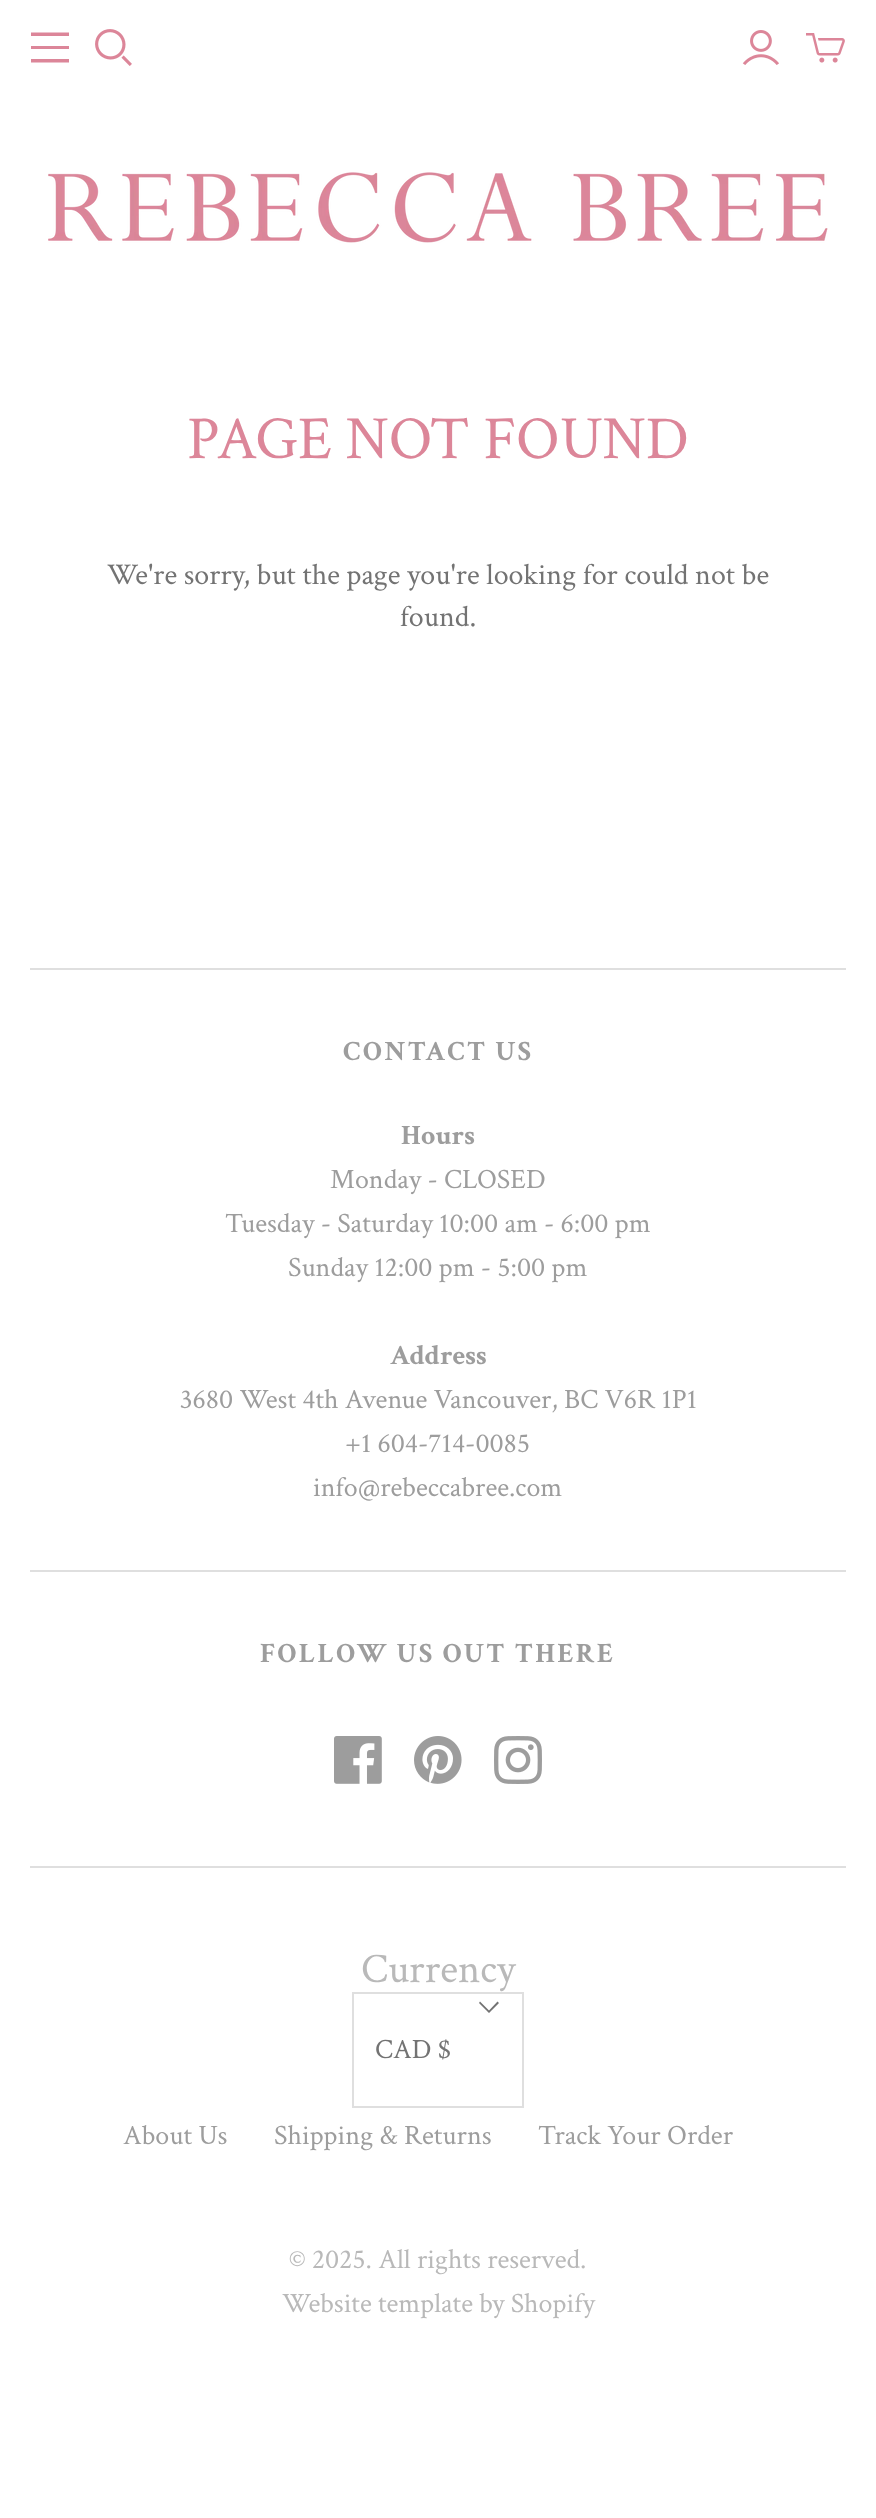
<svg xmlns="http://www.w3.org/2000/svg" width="876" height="2518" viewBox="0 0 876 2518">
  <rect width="100%" height="100%" fill="#fff"/>
  <path d="M69 36H31V32.5H69ZM69 49H31V46H69ZM31 62.5H69V59H31Z" fill="#dc8699" fill-rule="evenodd"/>
  <image x="95" y="29" width="37" height="37" href="img/1.png"/>
  <image x="742" y="30" width="37" height="35" href="img/2.png"/>
  <image x="806" y="33" width="39" height="30" href="img/3.png"/>
  <image x="48" y="172" width="780" height="71" href="img/4.png"/>
  <path d="M30 968h816v2H30z" fill="#dfdfdf"/>
  <path d="M30 1866h816v2H30z" fill="#dfdfdf"/>
  <path d="M30 1570h816v2H30z" fill="#dfdfdf"/>
  <image x="334" y="1736" width="48" height="48" href="img/5.png"/>
  <image x="414" y="1736" width="48" height="48" href="img/6.png"/>
  <image x="494" y="1736" width="48" height="48" href="img/7.png"/>
  <path d="M353 1993h170v114H353z" fill="none" stroke="#dfdfdf" stroke-width="2"/>
  <path d="M489 2010.5L497.5 2001.5L499 2003L489 2013L479 2003L480 2001.5Z" fill="#737373"/>
  <text x="187" y="458" font-family="Crimson Text" font-size="61.25" fill="#dc8699">PAGE NOT FOUND</text>
  <g font-family="Crimson Text" font-size="30" fill="#737373">
    <text x="107" y="584">We're sorry, but the page you're looking for could not be</text>
    <text x="400" y="626">found.</text>
  </g>
  <text x="343" y="1060" font-family="Crimson Text" font-size="28" font-weight="bold" letter-spacing="2.25" fill="#9d9d9d">CONTACT US</text>
  <text x="401" y="1144" font-family="Crimson Text" font-size="28" font-weight="bold" fill="#9d9d9d">Hours</text>
  <g font-family="Crimson Text" font-size="28" fill="#9d9d9d">
    <text x="330" y="1188">Monday - CLOSED</text>
    <text x="225" y="1232">Tuesday - Saturday 10:00 am - 6:00 pm</text>
    <text x="288" y="1276">Sunday 12:00 pm - 5:00 pm</text>
  </g>
  <text x="390" y="1364" font-family="Crimson Text" font-size="28" font-weight="bold" fill="#9d9d9d">Address</text>
  <g font-family="Crimson Text" font-size="28" fill="#9d9d9d">
    <text x="180" y="1408">3680 West 4th Avenue Vancouver, BC V6R 1P1</text>
    <text x="345" y="1452">+1 604-714-0085</text>
    <text x="313" y="1496">info@rebeccabree.com</text>
  </g>
  <text x="260" y="1662" font-family="Crimson Text" font-size="28" font-weight="bold" letter-spacing="2.25" fill="#9d9d9d">FOLLOW US OUT THERE</text>
  <text x="361" y="1982" font-family="Crimson Text" font-size="42" fill="#b9b9b9">Currency</text>
  <text x="375" y="2058" font-family="Crimson Text" font-size="28" fill="#737373">CAD $</text>
  <g font-family="Crimson Text" font-size="28" fill="#9d9d9d">
    <text x="123" y="2144">About Us</text>
    <text x="274" y="2144">Shipping &amp; Returns</text>
    <text x="538" y="2144">Track Your Order</text>
  </g>
  <g font-family="Crimson Text" font-size="28" fill="#b9b9b9">
    <text x="289" y="2268">© 2025. All rights reserved.</text>
    <text x="282" y="2312">Website template by Shopify</text>
  </g>
</svg>
